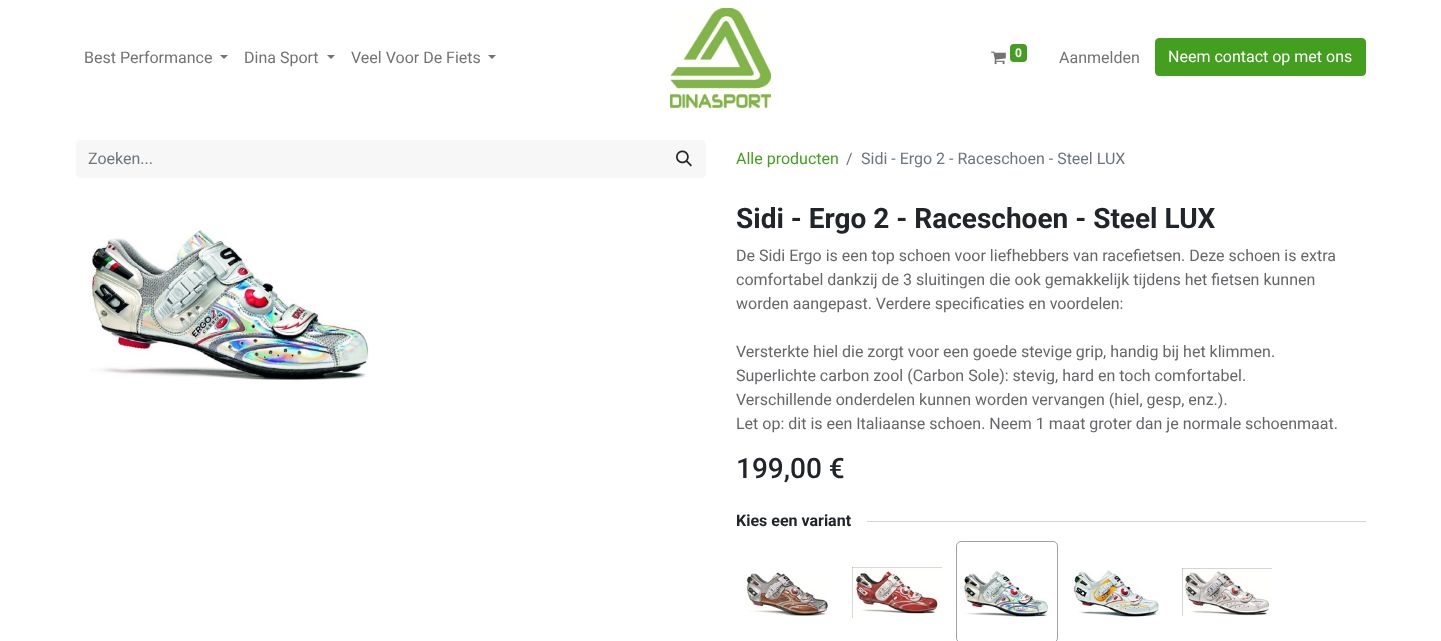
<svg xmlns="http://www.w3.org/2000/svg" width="1441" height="641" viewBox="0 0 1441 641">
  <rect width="100%" height="100%" fill="#fff"/>
  <path d="M220 55H228L224 59Z" fill="#737373"/>
  <path d="M327 55H335L331 59Z" fill="#737373"/>
  <path d="M488 55H496L492 59Z" fill="#737373"/>
  <image x="670" y="8" width="101" height="100" href="img/1.png"/>
  <image x="991" y="51" width="15" height="14" href="img/2.png"/>
  <rect x="1010" y="44" width="17" height="18" rx="4" fill="#449e1f"/>
  <rect x="1155.5" y="38.5" width="210" height="37" rx="3.5" fill="#449e1f" stroke="#449e1f"/>
  <path d="M80 140H664V178H80C78 178 76 176 76 174V144C76 142 78 140 80 140Z" fill="#f7f7f7"/>
  <path d="M663 140H702C704 140 706 142 706 144V174C706 176 704 178 702 178H663Z" fill="#f7f7f7"/>
  <image x="676" y="150" width="16" height="17" href="img/3.png"/>
  <image x="89" y="228" width="280" height="153" href="img/4.png"/>
  <path d="M867 521h499v1H867z" fill="#ced4da"/>
  <image x="742" y="572" width="88" height="45" href="img/5.png"/>
  <image x="852" y="567" width="90" height="51" href="img/6.png"/>
  <rect x="956.5" y="541.5" width="101" height="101" rx="4.5" fill="none" stroke="#9da1aa"/>
  <image x="962" y="569" width="90" height="50" href="img/7.png"/>
  <image x="1072" y="569" width="88" height="48" href="img/8.png"/>
  <image x="1182" y="568" width="90" height="48" href="img/9.png"/>
  <g font-family="Roboto" font-size="16" fill="#737373">
    <text x="84" y="63">Best Performance</text>
    <text x="244" y="63">Dina Sport</text>
    <text x="351" y="63">Veel Voor De Fiets</text>
  </g>
  <text x="1015" y="57" font-family="Roboto" font-size="12" font-weight="bold" fill="#fff">0</text>
  <text x="1059" y="63" font-family="Roboto" font-size="16" fill="#737373">Aanmelden</text>
  <text x="1168" y="62" font-family="Roboto" font-size="16" fill="#fff">Neem contact op met ons</text>
  <text x="88" y="164" font-family="Roboto" font-size="16" fill="#6c757d">Zoeken...</text>
  <text x="736" y="164" font-family="Roboto" font-size="16" fill="#449e1f">Alle producten</text>
  <g font-family="Roboto" font-size="16" fill="#6c757d">
    <text x="846" y="164">/</text>
    <text x="861" y="164">Sidi - Ergo 2 - Raceschoen - Steel LUX</text>
  </g>
  <text x="736" y="228" font-family="Roboto" font-size="28" font-weight="bold" fill="#212529">Sidi - Ergo 2 - Raceschoen - Steel LUX</text>
  <g font-family="Roboto" font-size="16" fill="#646669">
    <text x="736" y="261">De Sidi Ergo is een top schoen voor liefhebbers van racefietsen. Deze schoen is extra</text>
    <text x="736" y="285">comfortabel dankzij de 3 sluitingen die ook gemakkelijk tijdens het fietsen kunnen</text>
    <text x="736" y="309">worden aangepast. Verdere specificaties en voordelen:</text>
    <text x="736" y="357">Versterkte hiel die zorgt voor een goede stevige grip, handig bij het klimmen.</text>
    <text x="736" y="381">Superlichte carbon zool (Carbon Sole): stevig, hard en toch comfortabel.</text>
    <text x="736" y="405">Verschillende onderdelen kunnen worden vervangen (hiel, gesp, enz.).</text>
    <text x="736" y="429">Let op: dit is een Italiaanse schoen. Neem 1 maat groter dan je normale schoenmaat.</text>
  </g>
  <text x="736" y="478" font-family="Roboto" font-size="28" font-weight="500" fill="#212529">199,00 €</text>
  <text x="736" y="526" font-family="Roboto" font-size="16" font-weight="bold" fill="#212529">Kies een variant</text>
</svg>
